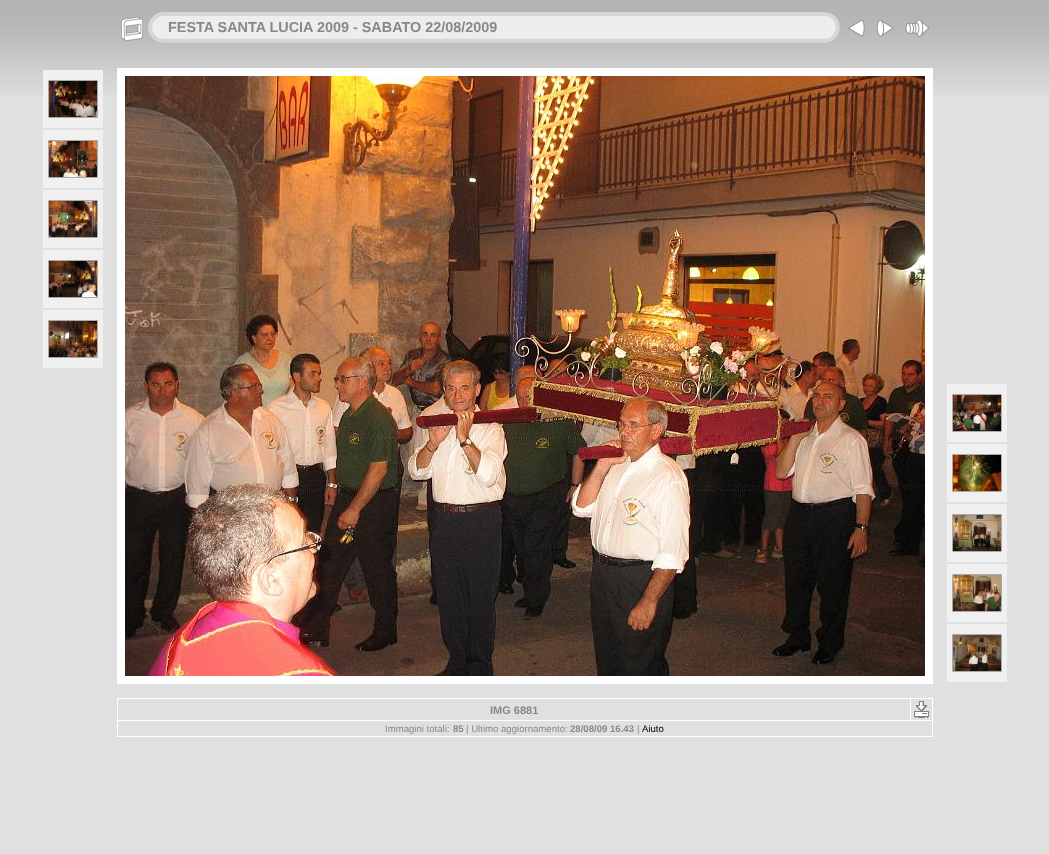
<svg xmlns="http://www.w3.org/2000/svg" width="1049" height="854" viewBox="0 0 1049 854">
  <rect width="100%" height="100%" fill="#e0e0e0"/>
  <image x="0" y="0" width="1049" height="95" href="img/1.png"/>
  <image x="121" y="17" width="22" height="24" href="img/2.png"/>
  <image x="148" y="12" width="20" height="31" href="img/3.png"/>
  <image x="168" y="12" width="652" height="31" href="img/4.png"/>
  <image x="820" y="12" width="20" height="31" href="img/5.png"/>
  <image x="848" y="20" width="17" height="17" href="img/6.png"/>
  <image x="876" y="20" width="18" height="17" href="img/7.png"/>
  <image x="905" y="19" width="24" height="18" href="img/8.png"/>
  <path d="M43 70h60v58H43z" fill="#f0f0f0"/>
  <path d="M48.5 80.5h49v37H48.5z" fill="none" stroke="#aaa"/>
  <image x="49" y="81" width="48" height="36" href="img/9.png"/>
  <path d="M43 130h60v58H43z" fill="#f0f0f0"/>
  <path d="M48.5 140.5h49v37H48.5z" fill="none" stroke="#aaa"/>
  <image x="49" y="141" width="48" height="36" href="img/10.png"/>
  <path d="M43 190h60v58H43z" fill="#f0f0f0"/>
  <path d="M48.5 200.5h49v37H48.5z" fill="none" stroke="#aaa"/>
  <image x="49" y="201" width="48" height="36" href="img/11.png"/>
  <path d="M43 250h60v58H43z" fill="#f0f0f0"/>
  <path d="M48.5 260.5h49v37H48.5z" fill="none" stroke="#aaa"/>
  <image x="49" y="261" width="48" height="36" href="img/12.png"/>
  <path d="M43 310h60v58H43z" fill="#f0f0f0"/>
  <path d="M48.5 320.5h49v37H48.5z" fill="none" stroke="#aaa"/>
  <image x="49" y="321" width="48" height="36" href="img/13.png"/>
  <path d="M121 72h808v608H121z" fill="none" stroke="#fff" stroke-width="8"/>
  <image x="125" y="76" width="800" height="600" href="img/14.png"/>
  <path d="M947 384h60v58H947z" fill="#f0f0f0"/>
  <path d="M952.5 394.5h49v37H952.5z" fill="none" stroke="#aaa"/>
  <image x="953" y="395" width="48" height="36" href="img/15.png"/>
  <path d="M947 444h60v58H947z" fill="#f0f0f0"/>
  <path d="M952.5 454.5h49v37H952.5z" fill="none" stroke="#aaa"/>
  <image x="953" y="455" width="48" height="36" href="img/16.png"/>
  <path d="M947 504h60v58H947z" fill="#f0f0f0"/>
  <path d="M952.5 514.5h49v37H952.5z" fill="none" stroke="#aaa"/>
  <image x="953" y="515" width="48" height="36" href="img/17.png"/>
  <path d="M947 564h60v58H947z" fill="#f0f0f0"/>
  <path d="M952.5 574.5h49v37H952.5z" fill="none" stroke="#aaa"/>
  <image x="953" y="575" width="48" height="36" href="img/18.png"/>
  <path d="M947 624h60v58H947z" fill="#f0f0f0"/>
  <path d="M952.5 634.5h49v37H952.5z" fill="none" stroke="#aaa"/>
  <image x="953" y="635" width="48" height="36" href="img/19.png"/>
  <path d="M117 698h816v1H117z" fill="#fff"/>
  <path d="M932 698h1v39H932z" fill="#fff"/>
  <path d="M117 736h816v1H117z" fill="#fff"/>
  <path d="M117 698h1v39H117z" fill="#fff"/>
  <path d="M117 720h816v1H117z" fill="#fff"/>
  <path d="M910 698h1v23H910z" fill="#fff"/>
  <image x="914" y="701" width="15" height="17" href="img/20.png"/>
  <text x="168" y="32" font-family="Liberation Sans" font-size="14.4" font-weight="bold" fill="#888">FESTA SANTA LUCIA 2009 - SABATO 22/08/2009</text>
  <text x="490" y="714" font-family="Liberation Sans" font-size="11" font-weight="bold" fill="#888">IMG 6881</text>
  <text x="385" y="732" font-family="Liberation Sans" font-size="9.6" fill="#888">Immagini totali:</text>
  <text x="453" y="732" font-family="Liberation Sans" font-size="9.6" font-weight="bold" fill="#888">85</text>
  <text x="466" y="732" font-family="Liberation Sans" font-size="9.6" fill="#888">| Ultimo aggiornamento:</text>
  <text x="570" y="732" font-family="Liberation Sans" font-size="9.6" font-weight="bold" fill="#888">28/08/09 16.43</text>
  <text x="637" y="732" font-family="Liberation Sans" font-size="9.6" fill="#888">|</text>
  <text x="642" y="732" font-family="Liberation Sans" font-size="9.6" fill="#000">Aiuto</text>
</svg>
